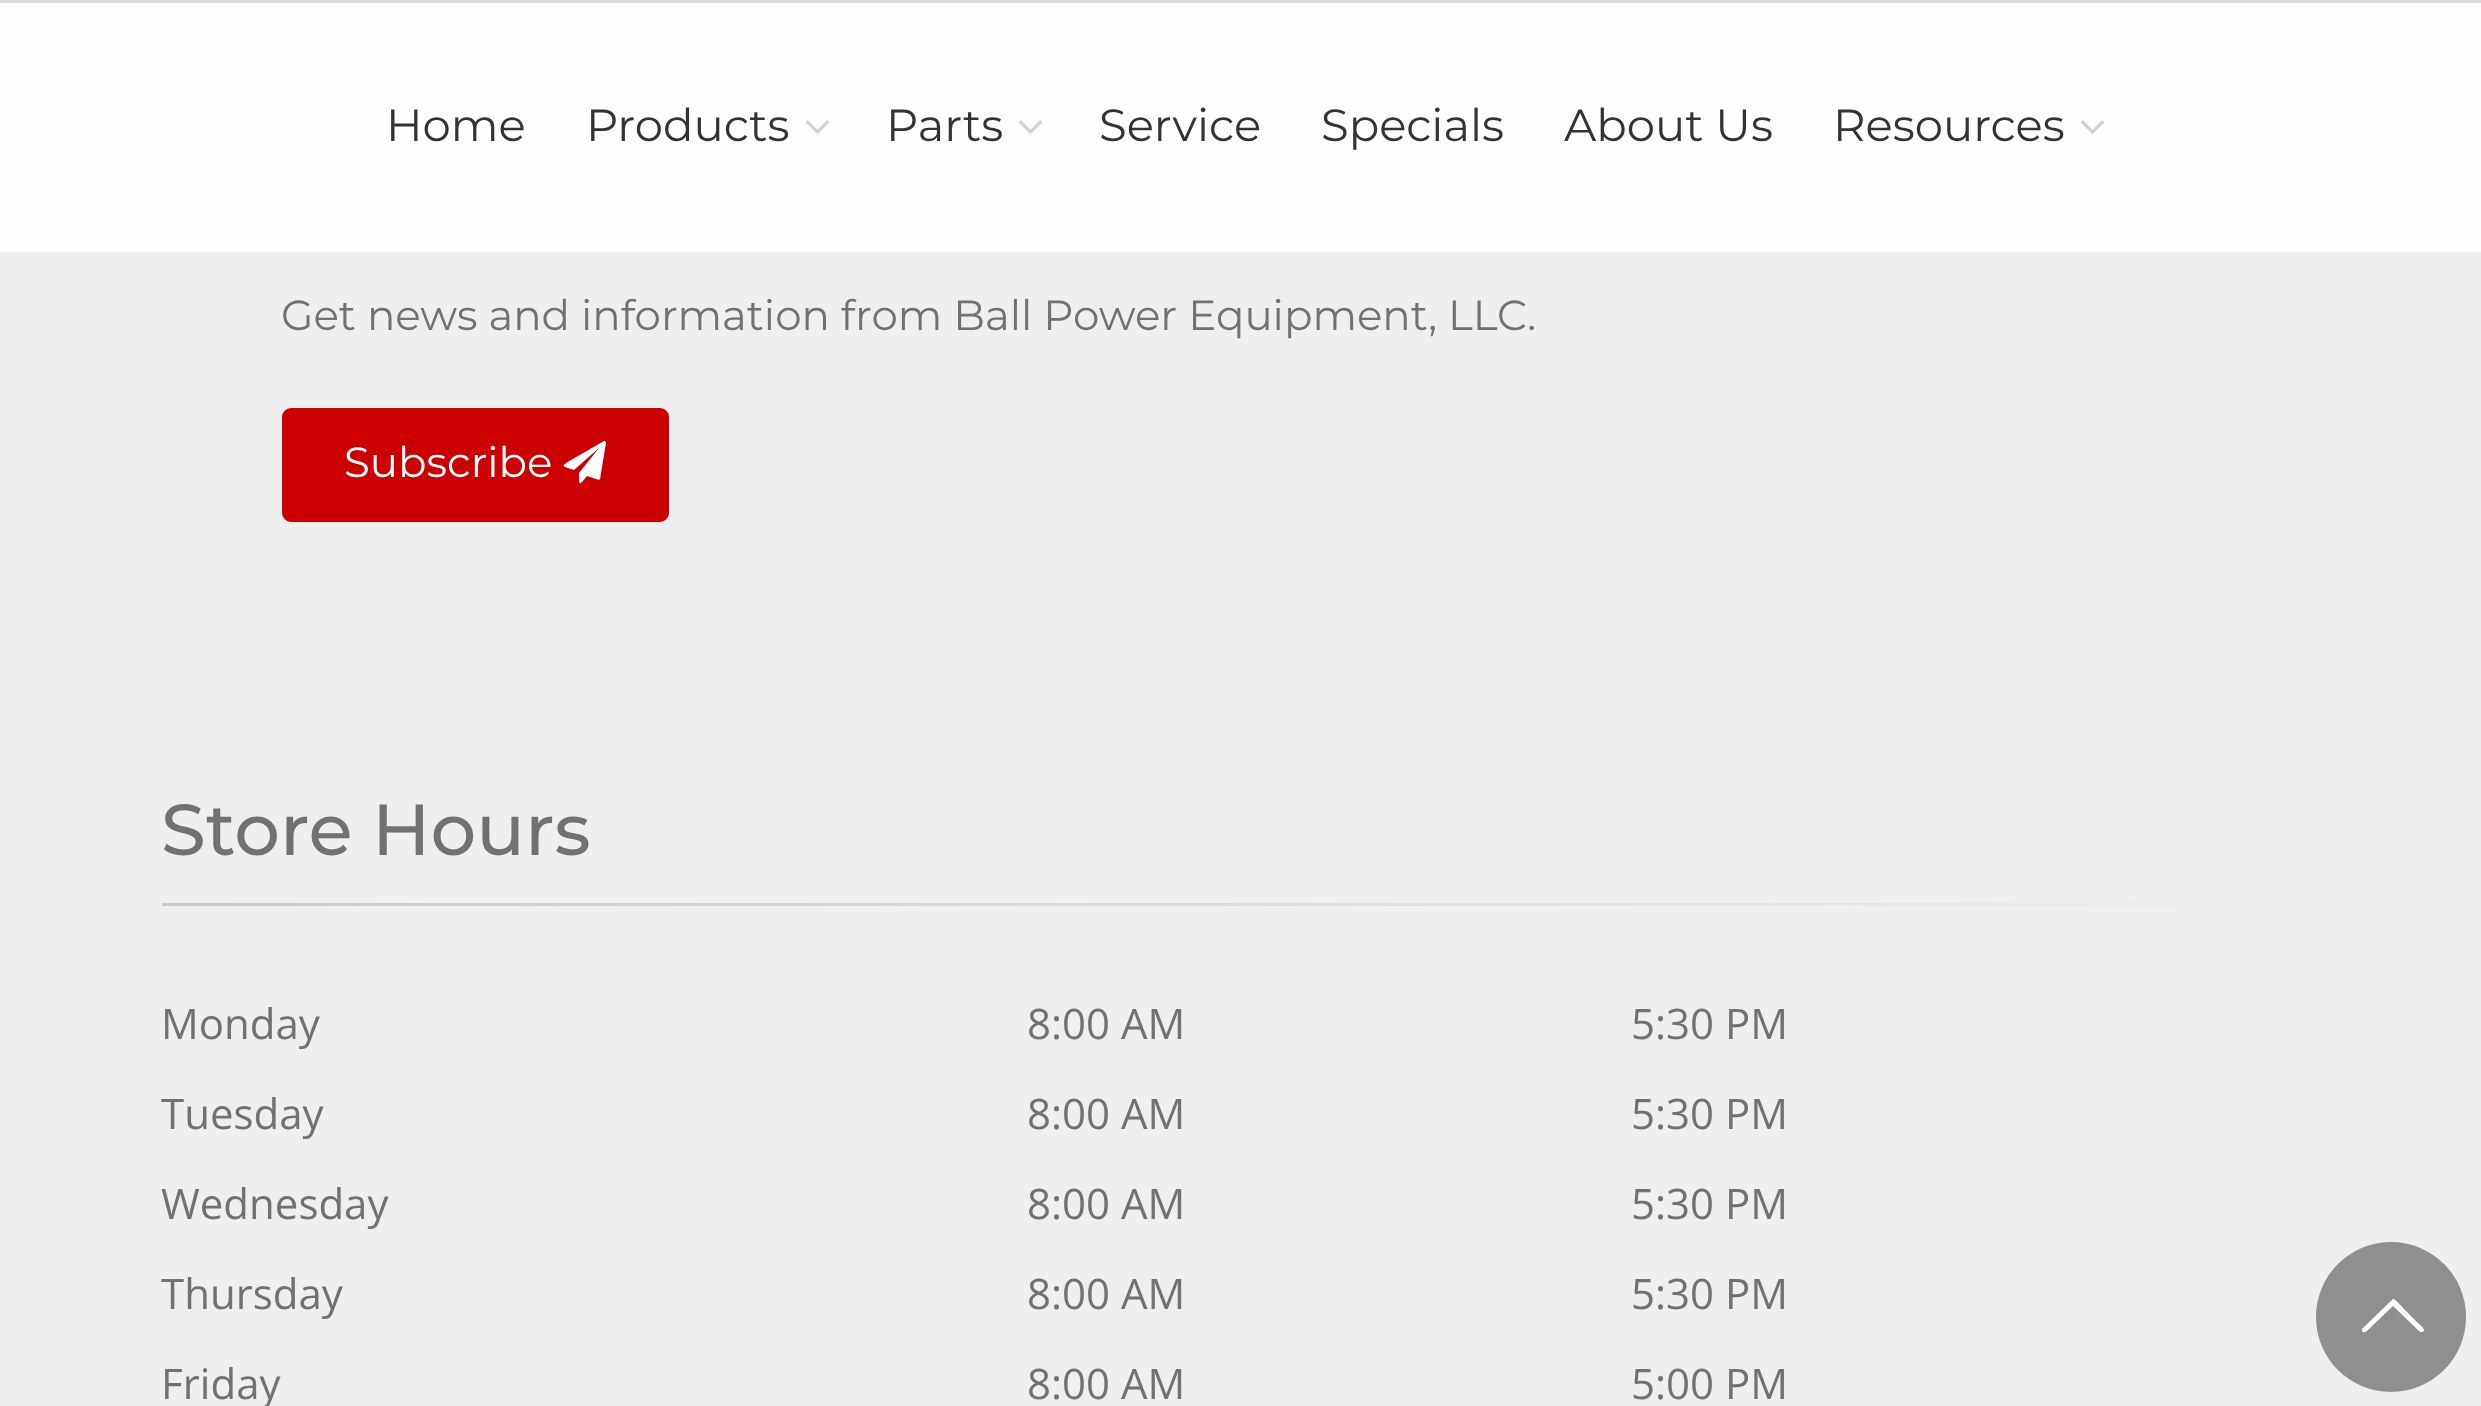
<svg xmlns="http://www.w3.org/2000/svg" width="2481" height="1406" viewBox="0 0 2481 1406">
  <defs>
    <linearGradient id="g1" gradientUnits="userSpaceOnUse" x1="162" y1="905" x2="2322" y2="905"><stop offset="0" stop-color="#c9c9c9"/><stop offset="1" stop-color="#efefef"/></linearGradient>
  </defs>
  <rect width="100%" height="100%" fill="#efefef"/>
  <path d="M0 0h2481v3H0z" fill="#ddd"/>
  <path d="M0 3h2481v249H0z" fill="#fefefe"/>
  <image x="806" y="120" width="23" height="14" href="img/1.png"/>
  <image x="1019" y="120" width="23" height="14" href="img/1.png"/>
  <image x="2081" y="120" width="23" height="14" href="img/1.png"/>
  <rect x="283.5" y="409.5" width="384" height="111" rx="7.5" fill="#c00" stroke="#c00" stroke-width="3"/>
  <path d="M605 441L606 443L601 473C600 479 601 481 596 479L587 476C579 486 579 486 579 473L599 448L574 470C563 466 559 467 571 460L604 441Z" fill="#fff"/>
  <path d="M162 903h2018v3H162z" fill="url(#g1)"/>
  <circle cx="2391" cy="1317" r="75" fill="#8f8f8f"/>
  <path d="M2420 1332L2393 1306L2371 1327C2369 1329 2364 1335 2362 1331V1329L2393 1299C2395 1298 2403 1308 2404 1309L2418 1323C2419 1324 2428 1331 2422 1332Z" fill="#fff"/>
  <g font-family="Montserrat" font-size="45" fill="#333">
    <text x="386" y="141">Home</text>
    <text x="586" y="141">Products</text>
    <text x="886" y="141">Parts</text>
    <text x="1099" y="141">Service</text>
    <text x="1321" y="141">Specials</text>
    <text x="1564" y="141">About Us</text>
    <text x="1833" y="141">Resources</text>
  </g>
  <text x="281" y="330" font-family="Montserrat" font-size="42" fill="#717171">Get news and information from Ball Power Equipment, LLC.</text>
  <text x="344" y="477" font-family="Montserrat" font-size="42" fill="#fff">Subscribe</text>
  <text x="161" y="855" font-family="Montserrat" font-size="72" font-weight="500" fill="#717171">Store Hours</text>
  <g font-family="Open Sans" font-size="42" fill="#717171">
    <text x="161" y="1039">Monday</text>
    <text x="1027" y="1039">8:00 AM</text>
    <text x="1631" y="1039">5:30 PM</text>
    <text x="161" y="1129">Tuesday</text>
    <text x="1027" y="1129">8:00 AM</text>
    <text x="1631" y="1129">5:30 PM</text>
    <text x="161" y="1219">Wednesday</text>
    <text x="1027" y="1219">8:00 AM</text>
    <text x="1631" y="1219">5:30 PM</text>
    <text x="161" y="1309">Thursday</text>
    <text x="1027" y="1309">8:00 AM</text>
    <text x="1631" y="1309">5:30 PM</text>
    <text x="161" y="1399">Friday</text>
    <text x="1027" y="1399">8:00 AM</text>
    <text x="1631" y="1399">5:00 PM</text>
  </g>
</svg>
